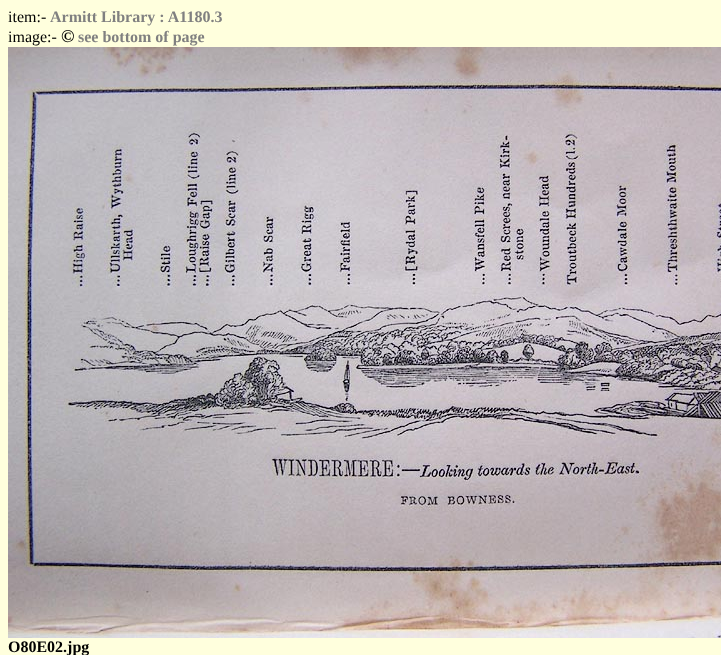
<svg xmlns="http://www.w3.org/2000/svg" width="721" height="655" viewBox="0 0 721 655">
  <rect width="100%" height="100%" fill="#ffd"/>
  <image x="8" y="47" width="713" height="591" href="img/1.png"/>
  <text x="8" y="22" font-family="Liberation Serif" font-size="16" fill="#000">item:-</text>
  <text x="50" y="22" font-family="Liberation Serif" font-size="16" font-weight="bold" fill="#808080">Armitt Library : A1180.3</text>
  <text x="8" y="42" font-family="Liberation Serif" font-size="16" fill="#000">image:-</text>
  <text x="61" y="42" font-family="Liberation Serif" font-size="18" font-weight="bold" fill="#000">©</text>
  <text x="78" y="42" font-family="Liberation Serif" font-size="16" font-weight="bold" fill="#808080">see bottom of page</text>
  <text x="8" y="652" font-family="Liberation Serif" font-size="16" font-weight="bold" fill="#000">O80E02.jpg</text>
</svg>
